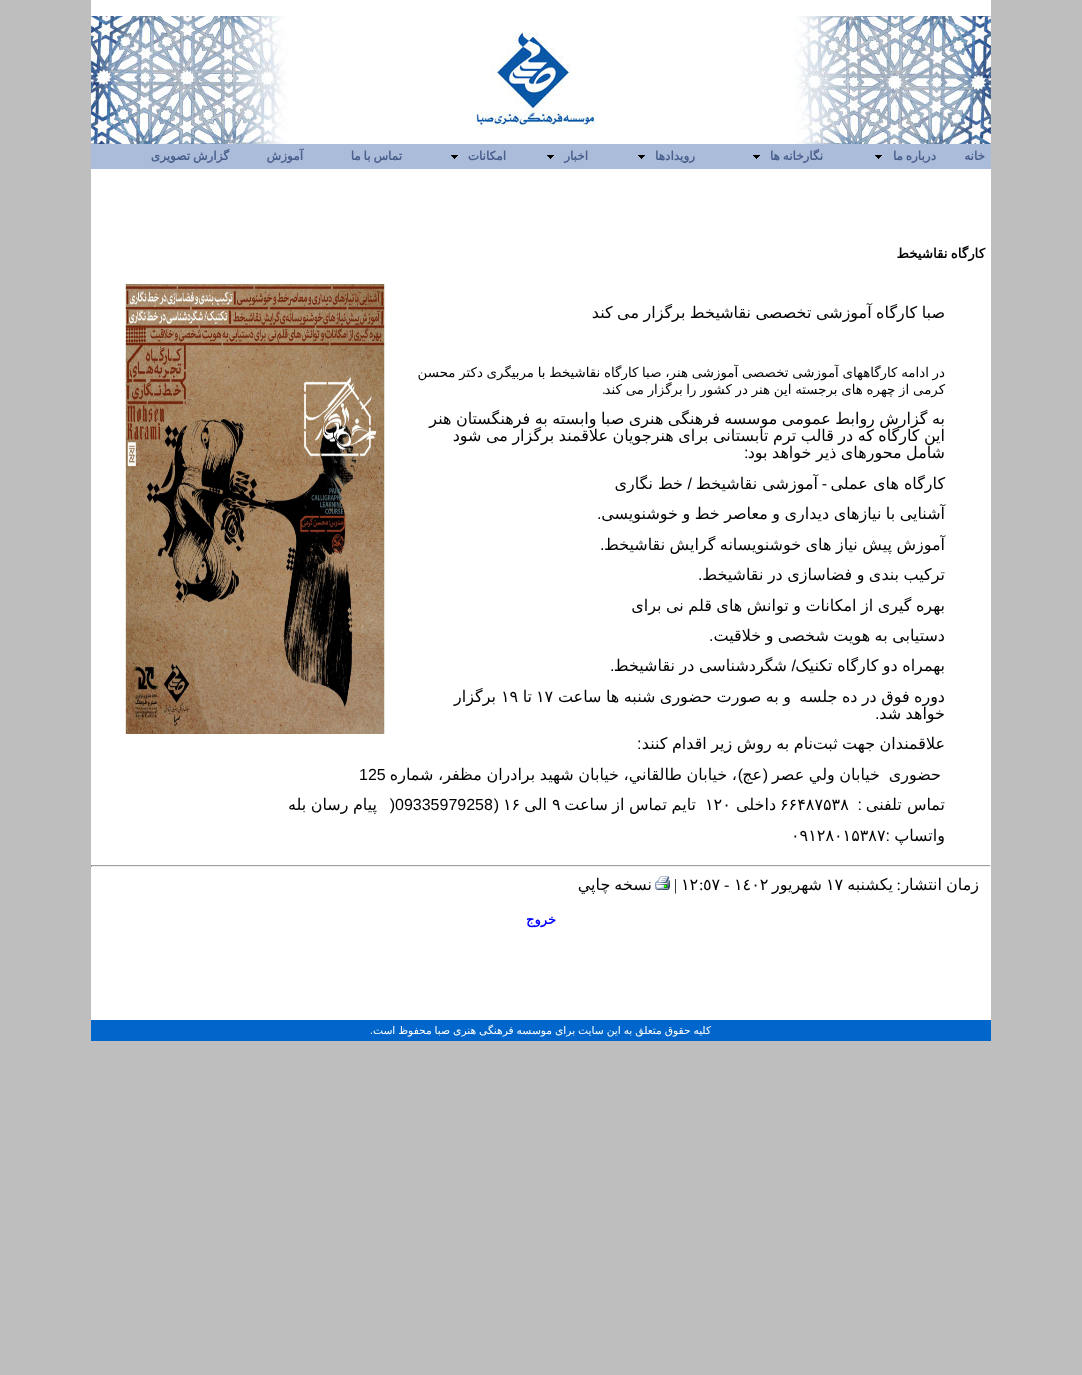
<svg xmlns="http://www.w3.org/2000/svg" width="1082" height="1375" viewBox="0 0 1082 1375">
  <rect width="100%" height="100%" fill="#bebebe"/>
  <path d="M91 0h900v1020H91z" fill="#fff"/>
  <image x="91" y="16" width="900" height="128" href="img/1.png"/>
  <path d="M91 144h900v25H91z" fill="#abbbda"/>
  <image x="875" y="155" width="7" height="4" href="img/2.png"/>
  <image x="753" y="155" width="7" height="4" href="img/2.png"/>
  <image x="638" y="155" width="7" height="4" href="img/2.png"/>
  <image x="547" y="155" width="7" height="4" href="img/2.png"/>
  <image x="451" y="155" width="7" height="4" href="img/2.png"/>
  <image x="124" y="284" width="262" height="450" href="img/3.png"/>
  <path d="M91 865h900v1H91z" fill="#9f9f9f"/>
  <path d="M990 865h1v2H990z" fill="#eee"/>
  <path d="M91 866h900v1H91z" fill="#eee"/>
  <path d="M91 865h1v2H91z" fill="#9f9f9f"/>
  <image x="655" y="876" width="15" height="14" href="img/4.png"/>
  <path d="M91 1020h900v21H91z" fill="#06c"/>
  <g font-family="DejaVu Sans" font-size="12" font-weight="bold" direction="rtl" fill="#485f8c">
    <text x="985" y="160">خانه</text>
    <text x="936" y="160" word-spacing="-1">درباره ما</text>
    <text x="823" y="160" word-spacing="-1">نگارخانه ها</text>
    <text x="695" y="160">رويدادها</text>
    <text x="588" y="160">اخبار</text>
    <text x="506" y="160">امکانات</text>
    <text x="402" y="160" word-spacing="-1">تماس با ما</text>
    <text x="303" y="160">آموزش</text>
    <text x="229" y="160" word-spacing="-1">گزارش تصویری</text>
  </g>
  <text x="985" y="258" word-spacing="-1" font-family="DejaVu Sans" font-size="13.35" font-weight="bold" direction="rtl" fill="#000">کارگاه نقاشیخط</text>
  <text x="945" y="318" word-spacing="-0.6" font-family="DejaVu Sans" font-size="16" direction="rtl" fill="#000">صبا کارگاه آموزشی تخصصی نقاشیخط برگزار می کند</text>
  <g font-family="DejaVu Sans" font-size="13.35" direction="rtl" fill="#000">
    <text x="945" y="377" word-spacing="-0.5">در ادامه کارگاههای آموزشی تخصصی آموزشی هنر، صبا کارگاه نقاشیخط با مربیگری دکتر محسن</text>
    <text x="945" y="394" word-spacing="-0.5">کرمی از چهره های برجسته این هنر در کشور را برگزار می کند</text>
  </g>
  <text x="602" y="394" font-family="Liberation Sans" font-size="13.35" fill="#000">.</text>
  <g font-family="DejaVu Sans" font-size="16" direction="rtl" fill="#000">
    <text x="945" y="424" word-spacing="-0.6">به گزارش روابط عمومی موسسه فرهنگی هنری صبا وابسته به فرهنگستان هنر</text>
    <text x="945" y="441" word-spacing="-0.6">این کارگاه که در قالب ترم تابستانی برای هنرجویان علاقمند برگزار می شود</text>
    <text x="945" y="458" word-spacing="-0.6">شامل محورهای ذیر خواهد بود</text>
  </g>
  <text x="744" y="458" font-family="Liberation Sans" font-size="16" fill="#000">:</text>
  <text x="945" y="489" font-family="DejaVu Sans" font-size="16" direction="rtl" fill="#000">کارگاه های عملی</text>
  <text x="827" y="489" font-family="Liberation Sans" font-size="16" direction="rtl" fill="#000">-</text>
  <text x="818" y="489" font-family="DejaVu Sans" font-size="16" direction="rtl" fill="#000">آموزشی نقاشیخط</text>
  <text x="692" y="489" font-family="Liberation Sans" font-size="16" direction="rtl" fill="#000">/</text>
  <g font-family="DejaVu Sans" font-size="16" direction="rtl" fill="#000">
    <text x="683" y="489">خط نگاری</text>
    <text x="945" y="519" word-spacing="-0.6">آشنایی با نیازهای دیداری و معاصر خط و خوشنویسی</text>
  </g>
  <text x="597" y="519" font-family="Liberation Sans" font-size="16" fill="#000">.</text>
  <text x="945" y="550" word-spacing="-0.6" font-family="DejaVu Sans" font-size="16" direction="rtl" fill="#000">آموزش پیش نیاز های خوشنویسانه گرایش نقاشیخط</text>
  <text x="600" y="550" font-family="Liberation Sans" font-size="16" fill="#000">.</text>
  <text x="945" y="580" word-spacing="-0.6" font-family="DejaVu Sans" font-size="16" direction="rtl" fill="#000">ترکیب بندی و فضاسازی در نقاشیخط</text>
  <text x="698" y="580" font-family="Liberation Sans" font-size="16" fill="#000">.</text>
  <g font-family="DejaVu Sans" font-size="16" direction="rtl" fill="#000">
    <text x="945" y="611" word-spacing="-0.6">بهره گیری از امکانات و توانش های قلم نی برای</text>
    <text x="945" y="641" word-spacing="-0.6">دستیابی به هویت شخصی و خلاقیت</text>
  </g>
  <text x="709" y="641" font-family="Liberation Sans" font-size="16" fill="#000">.</text>
  <text x="945" y="671" word-spacing="-0.5" font-family="DejaVu Sans" font-size="16" direction="rtl" fill="#000">بهمراه دو کارگاه تکنیک</text>
  <text x="796" y="671" font-family="Liberation Sans" font-size="16" direction="rtl" fill="#000">/</text>
  <text x="787" y="671" word-spacing="-0.5" font-family="DejaVu Sans" font-size="16" direction="rtl" fill="#000">شگردشناسی در نقاشیخط</text>
  <text x="610" y="671" font-family="Liberation Sans" font-size="16" fill="#000">.</text>
  <g font-family="DejaVu Sans" font-size="16" direction="rtl" fill="#000">
    <text x="945" y="702" word-spacing="-0.6">دوره فوق در ده جلسه</text>
    <text x="791" y="702" word-spacing="-0.6">و به صورت حضوری شنبه ها ساعت</text>
  </g>
  <text x="536" y="702" font-family="DejaVu Sans" font-size="16" fill="#000">۱۷</text>
  <text x="532" y="702" font-family="DejaVu Sans" font-size="16" direction="rtl" fill="#000">تا</text>
  <text x="501" y="702" font-family="DejaVu Sans" font-size="16" fill="#000">۱۹</text>
  <g font-family="DejaVu Sans" font-size="16" direction="rtl" fill="#000">
    <text x="496" y="702">برگزار</text>
    <text x="945" y="719" word-spacing="-0.6">خواهد شد</text>
  </g>
  <text x="875" y="719" font-family="Liberation Sans" font-size="16" fill="#000">.</text>
  <g font-family="DejaVu Sans" font-size="16" direction="rtl" fill="#000">
    <text x="813" y="749" word-spacing="-0.6">نام به روش زیر اقدام کنند</text>
    <text x="945" y="749" word-spacing="-0.6">علاقمندان جهت ثبت</text>
  </g>
  <text x="637" y="749" font-family="Liberation Sans" font-size="16" fill="#000">:</text>
  <g font-family="DejaVu Sans" font-size="16" direction="rtl" fill="#000">
    <text x="880" y="780" word-spacing="-0.5">خيابان ولي عصر</text>
    <text x="737" y="780" word-spacing="-0.5">، خيابان طالقاني، خيابان شهيد برادران مظفر، شماره</text>
  </g>
  <text x="359" y="780" font-family="Liberation Sans" font-size="16" fill="#000">125</text>
  <text x="941" y="780" font-family="DejaVu Sans" font-size="16" direction="rtl" fill="#000">حضوری</text>
  <text x="768" y="780" font-family="Liberation Sans" font-size="16" direction="rtl" fill="#000">(</text>
  <text x="762" y="780" font-family="DejaVu Sans" font-size="16" direction="rtl" fill="#000">عج</text>
  <text x="743" y="780" font-family="Liberation Sans" font-size="16" direction="rtl" fill="#000">)</text>
  <text x="945" y="810" font-family="DejaVu Sans" font-size="16" direction="rtl" fill="#000">تماس تلفنی</text>
  <text x="862" y="810" font-family="Liberation Sans" font-size="16" direction="rtl" fill="#000">:</text>
  <text x="780" y="810" font-family="DejaVu Sans" font-size="16" fill="#000">۶۶۴۸۷۵۳۸</text>
  <text x="776" y="810" font-family="DejaVu Sans" font-size="16" direction="rtl" fill="#000">داخلی</text>
  <text x="705" y="810" font-family="DejaVu Sans" font-size="16" fill="#000">۱۲۰</text>
  <text x="696" y="810" word-spacing="-0.6" font-family="DejaVu Sans" font-size="16" direction="rtl" fill="#000">تایم تماس از ساعت</text>
  <text x="552" y="810" font-family="DejaVu Sans" font-size="16" fill="#000">۹</text>
  <text x="547" y="810" font-family="DejaVu Sans" font-size="16" direction="rtl" fill="#000">الی</text>
  <text x="503" y="810" font-family="DejaVu Sans" font-size="16" fill="#000">۱۶</text>
  <text x="499" y="810" font-family="Liberation Sans" font-size="16" direction="rtl" fill="#000">(</text>
  <text x="395" y="810" font-family="Liberation Sans" font-size="16" fill="#000">09335979258</text>
  <text x="395" y="810" font-family="Liberation Sans" font-size="16" direction="rtl" fill="#000" xml:space="preserve">(  </text>
  <g font-family="DejaVu Sans" font-size="16" direction="rtl" fill="#000">
    <text x="377" y="810" word-spacing="-0.6">پیام رسان بله</text>
    <text x="945" y="841">واتساپ</text>
  </g>
  <text x="890" y="841" font-family="Liberation Sans" font-size="16" direction="rtl" fill="#000">:</text>
  <text x="791" y="841" font-family="DejaVu Sans" font-size="16" fill="#000">۰۹۱۲۸۰۱۵۳۸۷</text>
  <text x="979" y="890" word-spacing="-1" font-family="DejaVu Sans" font-size="16" direction="rtl" fill="#000">زمان انتشار</text>
  <text x="901" y="890" font-family="Liberation Serif" font-size="16" direction="rtl" fill="#000">:</text>
  <text x="893" y="890" font-family="DejaVu Sans" font-size="16" direction="rtl" fill="#000">يکشنبه</text>
  <text x="826" y="890" font-family="DejaVu Sans" font-size="16" fill="#000">١٧</text>
  <text x="822" y="890" font-family="DejaVu Sans" font-size="16" direction="rtl" fill="#000">شهريور</text>
  <text x="734" y="890" font-family="DejaVu Sans" font-size="16" fill="#000">١٤٠٢</text>
  <text x="724" y="890" font-family="Liberation Serif" font-size="16" fill="#000">-</text>
  <text x="703" y="890" font-family="DejaVu Sans" font-size="16" fill="#000">٥٧</text>
  <text x="699" y="890" font-family="Liberation Serif" font-size="16" fill="#000">:</text>
  <text x="681" y="890" font-family="DejaVu Sans" font-size="16" fill="#000">١٢</text>
  <text x="674" y="890" font-family="Liberation Serif" font-size="16" fill="#000">|</text>
  <text x="652" y="890" word-spacing="-1" font-family="DejaVu Sans" font-size="16" direction="rtl" fill="#000">نسخه چاپي</text>
  <text x="556" y="924" font-family="DejaVu Sans" font-size="13" font-weight="bold" direction="rtl" fill="#00f">خروج</text>
  <text x="711" y="1034" word-spacing="-0.5" font-family="DejaVu Sans" font-size="10.7" direction="rtl" fill="#fff">کلیه حقوق متعلق به این سایت برای موسسه فرهنگی هنری صبا محفوظ است</text>
  <text x="373" y="1034" font-family="Liberation Sans" font-size="10.7" direction="rtl" fill="#fff">.</text>
</svg>
